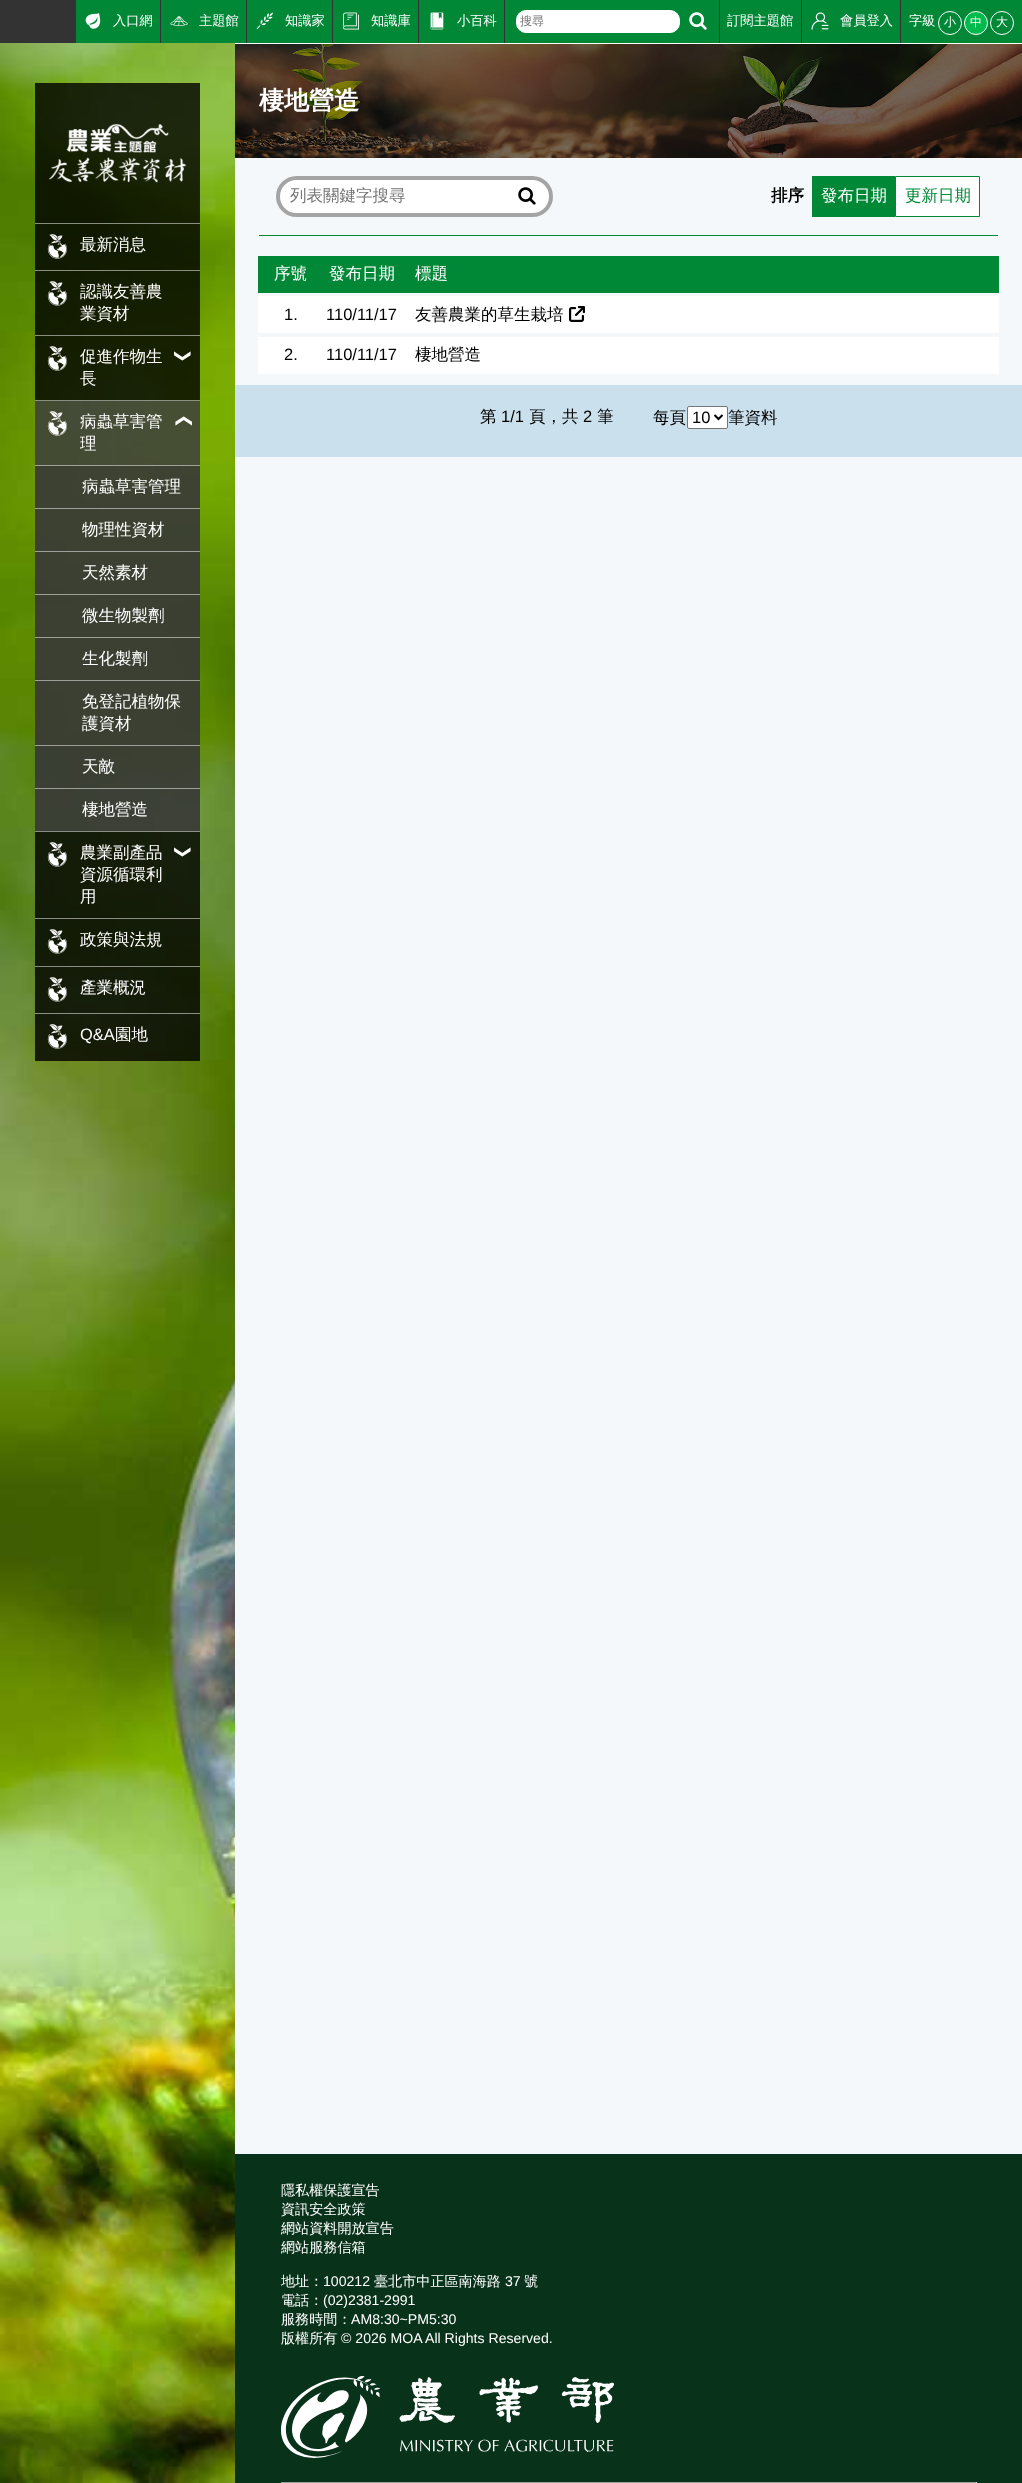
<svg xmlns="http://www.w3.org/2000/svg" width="1022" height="2483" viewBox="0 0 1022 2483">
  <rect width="100%" height="100%" fill="#fff"/>
  <image x="0" y="43" width="235" height="2440" href="img/1.png"/>
  <path d="M0 0h901v43H0z" fill="#333"/>
  <path d="M76 0h84v43H76z" fill="#008837"/>
  <image x="85" y="13" width="16" height="16" href="img/2.png"/>
  <path d="M161 0h85v43H161z" fill="#008837"/>
  <image x="170" y="16" width="18" height="10" href="img/3.png"/>
  <path d="M247 0h85v43H247z" fill="#008837"/>
  <image x="256" y="12" width="17" height="17" href="img/4.png"/>
  <path d="M333 0h85v43H333z" fill="#008837"/>
  <image x="343" y="12" width="16" height="18" href="img/5.png"/>
  <path d="M419 0h85v43H419z" fill="#008837"/>
  <image x="430" y="12" width="14" height="18" href="img/6.png"/>
  <path d="M505 0h214v43H505z" fill="#008837"/>
  <rect x="516.5" y="10.5" width="163" height="22" rx="9.5" fill="#fff" stroke="#fff"/>
  <image x="689" y="12" width="18" height="18" href="img/7.png"/>
  <path d="M720 0h81v43H720z" fill="#008837"/>
  <path d="M802 0h98v43H802z" fill="#008837"/>
  <image x="811" y="12" width="18" height="18" href="img/8.png"/>
  <path d="M901 0h121v43H901z" fill="#008837"/>
  <circle cx="950" cy="23" r="11.5" fill="none" stroke="#fff"/>
  <circle cx="976" cy="23" r="11.5" fill="#00bb4c" stroke="#fff"/>
  <circle cx="1002" cy="23" r="11.5" fill="none" stroke="#fff"/>
  <path d="M35 83h165v978H35z" fill="#000000cc"/>
  <image x="48" y="124" width="139" height="59" href="img/9.png"/>
  <path d="M35 223h165v1H35z" fill="#ffffff80"/>
  <image x="47" y="234" width="20" height="25" href="img/10.png"/>
  <path d="M35 270h165v1H35z" fill="#ffffff80"/>
  <image x="47" y="281" width="20" height="25" href="img/11.png"/>
  <path d="M35 335h165v1H35z" fill="#ffffff80"/>
  <image x="47" y="346" width="20" height="25" href="img/12.png"/>
  <path d="M35 400h165v1H35z" fill="#ffffff80"/>
  <path d="M35 401h165v64H35z" fill="#ffffff33"/>
  <image x="47" y="411" width="20" height="25" href="img/13.png"/>
  <path d="M35 466h165v365H35z" fill="#64646480"/>
  <path d="M35 465h165v1H35z" fill="#9ea199"/>
  <path d="M35 508h165v1H35z" fill="#9ea099"/>
  <path d="M35 551h165v1H35z" fill="#9ea099"/>
  <path d="M35 594h165v1H35z" fill="#9d9f99"/>
  <path d="M35 637h165v1H35z" fill="#9da099"/>
  <path d="M35 680h165v1H35z" fill="#9d9f99"/>
  <path d="M35 745h165v1H35z" fill="#9d9f99"/>
  <path d="M35 788h165v1H35z" fill="#ffffff80"/>
  <path d="M35 831h165v1H35z" fill="#ffffff80"/>
  <image x="47" y="842" width="20" height="25" href="img/14.png"/>
  <path d="M35 918h165v1H35z" fill="#ffffff80"/>
  <image x="47" y="929" width="20" height="25" href="img/15.png"/>
  <path d="M35 966h165v1H35z" fill="#ffffff80"/>
  <image x="47" y="977" width="20" height="25" href="img/16.png"/>
  <path d="M35 1013h165v1H35z" fill="#ffffff80"/>
  <image x="47" y="1024" width="20" height="25" href="img/17.png"/>
  <path d="M235 158h787v1996H235z" fill="#f4f8fb"/>
  <image x="235" y="44" width="787" height="114" href="img/18.png"/>
  <path d="M259 235h739v1H259z" fill="#008837"/>
  <rect x="278" y="178" width="273" height="37" rx="18.5" fill="#fff" stroke="#a4a4a4" stroke-width="4"/>
  <path d="M288 182h1v29H288z" fill="#fff"/>
  <image x="518" y="187" width="18" height="18" href="img/19.png"/>
  <path d="M812 176h83v41H812z" fill="#008837"/>
  <path d="M895.5 176.5h84v40H895.5z" fill="#fff" stroke="#008837"/>
  <path d="M258 256h741v37H258z" fill="#008837"/>
  <path d="M258 296h741v37H258z" fill="#fff"/>
  <image x="569" y="306" width="16" height="16" href="img/20.png"/>
  <path d="M258 337h741v37H258z" fill="#fff"/>
  <path d="M235 385h787v72H235z" fill="#cbe0ed"/>
  <rect x="687.5" y="406.5" width="40" height="22" rx="1.5" fill="#fff" stroke="#767676"/>
  <path d="M714.5 415L718.5 419L722.5 415" fill="none" stroke="#000" stroke-width="2"/>
  <path d="M235 2154h787v329H235z" fill="#083219"/>
  <image x="281" y="2376" width="333" height="82" href="img/21.png"/>
  <path d="M281 2482h696v1H281z" fill="#9f9f9f"/>
  <path d="M976 2482h1v1H976z" fill="#eee"/>
  <g font-family="WenQuanYi Zen Hei" font-size="13.25" font-weight="500" fill="#fff">
    <text x="113" y="25">入口網</text>
    <text x="199" y="25">主題館</text>
    <text x="285" y="25">知識家</text>
    <text x="371" y="25">知識庫</text>
    <text x="457" y="25">小百科</text>
  </g>
  <text x="520" y="25" font-family="WenQuanYi Zen Hei" font-size="12" font-weight="500" fill="#757575">搜尋</text>
  <g font-family="WenQuanYi Zen Hei" font-size="13.25" font-weight="500" fill="#fff">
    <text x="727" y="25">訂閱主題館</text>
    <text x="840" y="25">會員登入</text>
    <text x="909" y="25">字級</text>
  </g>
  <g font-family="WenQuanYi Zen Hei" font-size="12" font-weight="500" fill="#fff">
    <text x="944" y="26">小</text>
    <text x="970" y="26">中</text>
    <text x="996" y="26">大</text>
  </g>
  <g font-family="WenQuanYi Zen Hei" font-size="16.5" font-weight="500" fill="#fff">
    <text x="80" y="250">最新消息</text>
    <text x="80" y="297">認識友善農</text>
    <text x="80" y="319">業資材</text>
    <text x="80" y="362">促進作物生</text>
    <text x="80" y="384">長</text>
  </g>
  <text x="178" y="349" transform="rotate(90 178 349)" font-family="DejaVu Sans" font-size="16.5" fill="#fff">❯</text>
  <g font-family="WenQuanYi Zen Hei" font-size="16.5" font-weight="500" fill="#fff">
    <text x="80" y="427">病蟲草害管</text>
    <text x="80" y="449">理</text>
  </g>
  <text x="188" y="428" transform="rotate(-90 188 428)" font-family="DejaVu Sans" font-size="16.5" fill="#fff">❯</text>
  <g font-family="WenQuanYi Zen Hei" font-size="16.5" font-weight="500" fill="#fff">
    <text x="82" y="492">病蟲草害管理</text>
    <text x="82" y="535">物理性資材</text>
    <text x="82" y="578">天然素材</text>
    <text x="82" y="621">微生物製劑</text>
    <text x="82" y="664">生化製劑</text>
    <text x="82" y="707">免登記植物保</text>
    <text x="82" y="729">護資材</text>
    <text x="82" y="772">天敵</text>
    <text x="82" y="815">棲地營造</text>
    <text x="80" y="858">農業副產品</text>
    <text x="80" y="880">資源循環利</text>
    <text x="80" y="902">用</text>
  </g>
  <text x="178" y="845" transform="rotate(90 178 845)" font-family="DejaVu Sans" font-size="16.5" fill="#fff">❯</text>
  <g font-family="WenQuanYi Zen Hei" font-size="16.5" font-weight="500" fill="#fff">
    <text x="80" y="945">政策與法規</text>
    <text x="80" y="993">產業概況</text>
  </g>
  <text x="80" y="1040" font-family="Liberation Sans" font-size="16.5" fill="#fff">Q&amp;A</text>
  <text x="115" y="1040" font-family="WenQuanYi Zen Hei" font-size="16.5" font-weight="500" fill="#fff">園地</text>
  <text x="259" y="109" font-family="WenQuanYi Zen Hei" font-size="25" font-weight="bold" fill="#fff">棲地營造</text>
  <text x="290" y="201" font-family="WenQuanYi Zen Hei" font-size="16.5" font-weight="500" fill="#757575">列表關鍵字搜尋</text>
  <text x="771" y="201" font-family="WenQuanYi Zen Hei" font-size="16.5" font-weight="bold" fill="#000">排序</text>
  <text x="821" y="201" font-family="WenQuanYi Zen Hei" font-size="16.5" font-weight="500" fill="#fff">發布日期</text>
  <text x="905" y="201" font-family="WenQuanYi Zen Hei" font-size="16.5" font-weight="500" fill="#008837">更新日期</text>
  <g font-family="WenQuanYi Zen Hei" font-size="16.5" font-weight="500" fill="#fff">
    <text x="274" y="279">序號</text>
    <text x="329" y="279">發布日期</text>
    <text x="415" y="279">標題</text>
  </g>
  <g font-family="Liberation Sans" font-size="16.5" fill="#000">
    <text x="284" y="320">1.</text>
    <text x="326" y="320">110/11/17</text>
  </g>
  <text x="415" y="320" font-family="WenQuanYi Zen Hei" font-size="16.5" font-weight="500" fill="#000">友善農業的草生栽培</text>
  <g font-family="Liberation Sans" font-size="16.5" fill="#000">
    <text x="284" y="360">2.</text>
    <text x="326" y="360">110/11/17</text>
  </g>
  <g font-family="WenQuanYi Zen Hei" font-size="16.5" font-weight="500" fill="#000">
    <text x="415" y="360">棲地營造</text>
    <text x="480" y="422">第</text>
  </g>
  <text x="501" y="422" font-family="Liberation Sans" font-size="16.5" fill="#000">1/1</text>
  <text x="529" y="422" font-family="WenQuanYi Zen Hei" font-size="16.5" font-weight="500" fill="#000">頁，共</text>
  <text x="583" y="422" font-family="Liberation Sans" font-size="16.5" fill="#000">2</text>
  <g font-family="WenQuanYi Zen Hei" font-size="16.5" font-weight="500" fill="#000">
    <text x="597" y="422">筆</text>
    <text x="653" y="423">每頁</text>
  </g>
  <text x="692" y="423" font-family="Liberation Sans" font-size="16.5" fill="#000">10</text>
  <text x="728" y="423" font-family="WenQuanYi Zen Hei" font-size="16.5" font-weight="500" fill="#000">筆資料</text>
  <g font-family="WenQuanYi Zen Hei" font-size="14.1" font-weight="500" fill="#fff">
    <text x="281" y="2195">隱私權保護宣告</text>
    <text x="281" y="2214">資訊安全政策</text>
    <text x="281" y="2233">網站資料開放宣告</text>
    <text x="281" y="2252">網站服務信箱</text>
    <text x="281" y="2286">地址：</text>
  </g>
  <text x="323" y="2286" font-family="Liberation Sans" font-size="14.1" fill="#fff">100212</text>
  <text x="374" y="2286" font-family="WenQuanYi Zen Hei" font-size="14.1" font-weight="500" fill="#fff">臺北市中正區南海路</text>
  <text x="505" y="2286" font-family="Liberation Sans" font-size="14.1" fill="#fff">37</text>
  <g font-family="WenQuanYi Zen Hei" font-size="14.1" font-weight="500" fill="#fff">
    <text x="524" y="2286">號</text>
    <text x="281" y="2305">電話：</text>
  </g>
  <text x="323" y="2305" font-family="Liberation Sans" font-size="14.1" fill="#fff">(02)2381-2991</text>
  <text x="281" y="2324" font-family="WenQuanYi Zen Hei" font-size="14.1" font-weight="500" fill="#fff">服務時間：</text>
  <text x="351" y="2324" font-family="Liberation Sans" font-size="14.1" fill="#fff">AM8:30~PM5:30</text>
  <text x="281" y="2343" font-family="WenQuanYi Zen Hei" font-size="14.1" font-weight="500" fill="#fff">版權所有</text>
  <text x="341" y="2343" font-family="Liberation Sans" font-size="14.1" fill="#fff">© 2026 MOA All Rights Reserved.</text>
</svg>
